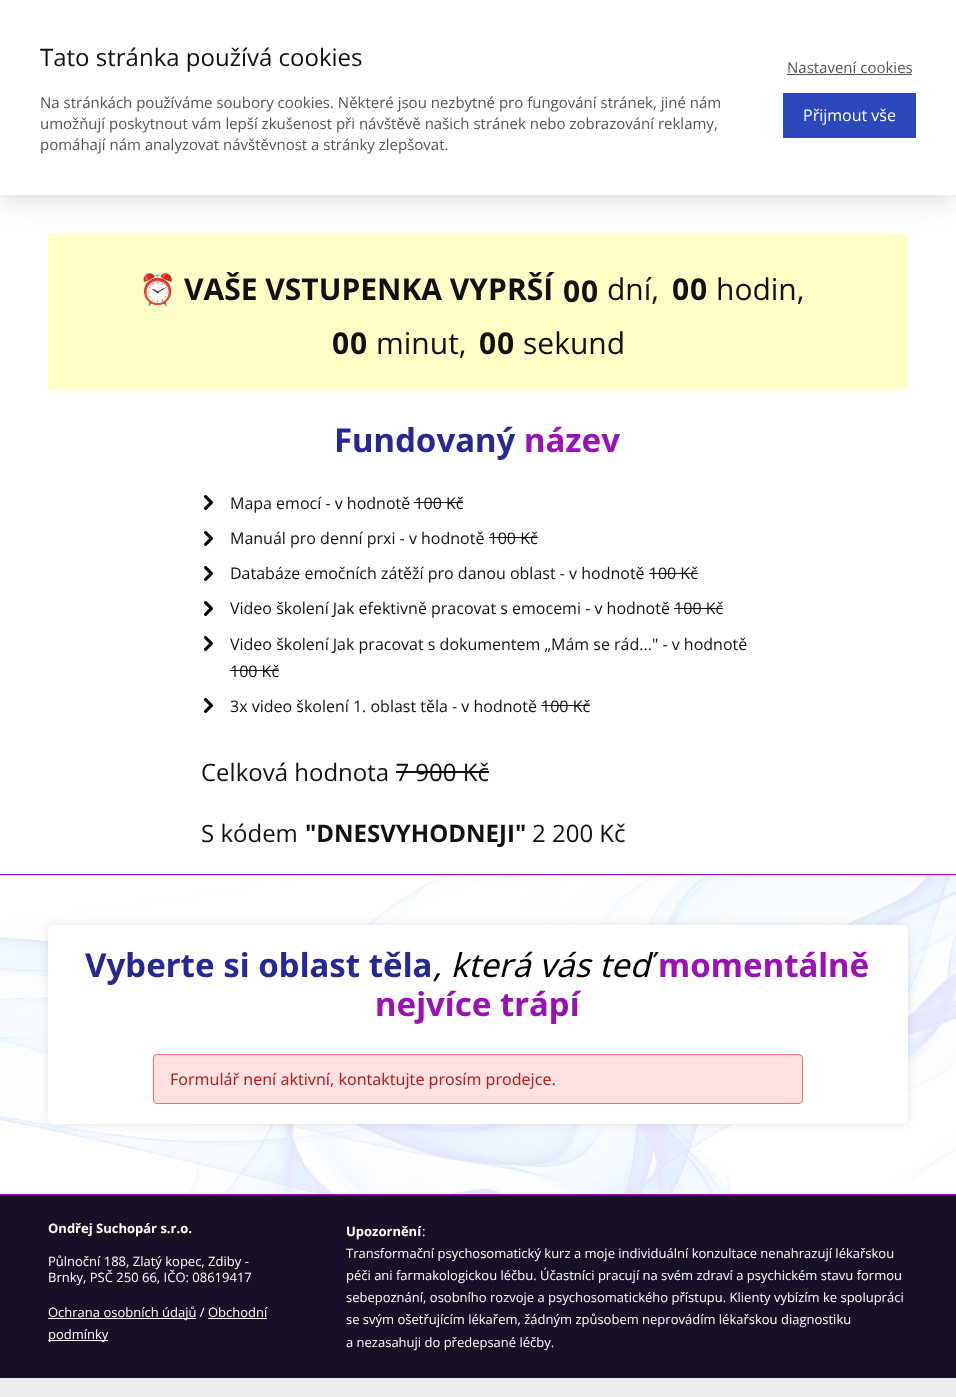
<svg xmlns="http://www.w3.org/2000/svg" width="956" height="1397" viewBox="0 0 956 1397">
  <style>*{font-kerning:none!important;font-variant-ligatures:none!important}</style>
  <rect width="100%" height="100%" fill="#ebebeb"/>
  <path d="M0 195h956v679H0z" fill="#fff"/>
  <path d="M48 234h860v156H48z" fill="#fffec7"/>
  <path d="M0 0h956v195H0z" fill="#00000033" filter="blur(15px)"/>
  <path d="M0 0h956v195H0z" fill="#fff"/>
  <path d="M787 74h125v1H787z" fill="#555"/>
  <path d="M783 93h133v45H783z" fill="#2c49bb"/>
  <image x="204" y="495" width="9" height="15" href="img/1.png"/>
  <path d="M414 502h49v1H414z" fill="#111"/>
  <image x="204" y="531" width="9" height="15" href="img/1.png"/>
  <path d="M489 537h49v1H489z" fill="#111"/>
  <image x="204" y="566" width="9" height="15" href="img/1.png"/>
  <path d="M649 573h49v1H649z" fill="#111"/>
  <image x="204" y="601" width="9" height="15" href="img/1.png"/>
  <path d="M674 608h49v1H674z" fill="#111"/>
  <image x="204" y="636" width="9" height="15" href="img/1.png"/>
  <path d="M230 670h49v1H230z" fill="#111"/>
  <image x="204" y="698" width="9" height="15" href="img/1.png"/>
  <path d="M541 705h49v1H541z" fill="#111"/>
  <path d="M396 771h93v2H396z" fill="#111"/>
  <path d="M0 874h956v1H0z" fill="#9a11b6"/>
  <path d="M0 1194h956v1H0z" fill="#9a11b6"/>
  <image x="0" y="875" width="956" height="319" href="img/2.png"/>
  <rect x="48" y="925" width="860" height="199" rx="5" fill="#0000001a" filter="blur(5px)"/>
  <rect x="48" y="925" width="860" height="199" rx="5" fill="#fff"/>
  <rect x="153.5" y="1054.5" width="649" height="49" rx="3.5" fill="#fee2e2" stroke="#f87171"/>
  <path d="M0 1195h956v183H0z" fill="#181026"/>
  <path d="M48 1318h148v1H48z" fill="#fff"/>
  <path d="M208 1318h59v1H208z" fill="#fff"/>
  <path d="M48 1340h60v1H48z" fill="#fff"/>
  <text x="40" y="66" font-family="Open Sans" font-size="24" fill="#111">Tato stránka používá cookies</text>
  <g font-family="Open Sans" font-size="15" fill="#555">
    <text x="40" y="108">Na stránkách používáme soubory cookies. Některé jsou nezbytné pro fungování stránek, jiné nám</text>
    <text x="40" y="129">umožňují poskytnout vám lepší zkušenost při návštěvě našich stránek nebo zobrazování reklamy,</text>
    <text x="40" y="150">pomáhají nám analyzovat návštěvnost a stránky zlepšovat.</text>
    <text x="787" y="73">Nastavení cookies</text>
  </g>
  <text x="803" y="121" font-family="Open Sans" font-size="16" fill="#fff">Přijmout vše</text>
  <text x="139" y="300" font-family="Noto Color Emoji" font-size="30" fill="#111">⏰</text>
  <text x="184" y="300" font-family="Open Sans" font-size="30" font-weight="bold" fill="#111">VAŠE VSTUPENKA VYPRŠÍ</text>
  <g font-family="Open Sans" font-size="30" font-weight="bold" letter-spacing="-1" fill="#111">
    <text x="563" y="302">0</text>
    <text x="581" y="302">0</text>
  </g>
  <text x="607" y="300" font-family="Open Sans" font-size="30" fill="#111">dní,</text>
  <g font-family="Open Sans" font-size="30" font-weight="bold" letter-spacing="-1" fill="#111">
    <text x="672" y="300">0</text>
    <text x="690" y="300">0</text>
  </g>
  <text x="716" y="300" font-family="Open Sans" font-size="30" fill="#111">hodin,</text>
  <g font-family="Open Sans" font-size="30" font-weight="bold" letter-spacing="-1" fill="#111">
    <text x="332" y="354">0</text>
    <text x="350" y="354">0</text>
  </g>
  <text x="376" y="354" font-family="Open Sans" font-size="30" fill="#111">minut,</text>
  <g font-family="Open Sans" font-size="30" font-weight="bold" letter-spacing="-1" fill="#111">
    <text x="479" y="354">0</text>
    <text x="497" y="354">0</text>
  </g>
  <text x="523" y="354" font-family="Open Sans" font-size="30" fill="#111">sekund</text>
  <text x="334" y="452" font-family="Noto Sans" font-size="33" font-weight="bold" fill="#262992">Fundovaný</text>
  <text x="524" y="452" font-family="Noto Sans" font-size="33" font-weight="bold" fill="#9a11b6">název</text>
  <g font-family="Open Sans" font-size="16" fill="#111">
    <text x="230" y="509">Mapa emocí - v hodnotě 100 Kč</text>
    <text x="230" y="544">Manuál pro denní prxi - v hodnotě 100 Kč</text>
    <text x="230" y="579">Databáze emočních zátěží pro danou oblast - v hodnotě 100 Kč</text>
    <text x="230" y="614">Video školení Jak efektivně pracovat s emocemi - v hodnotě 100 Kč</text>
    <text x="230" y="650">Video školení Jak pracovat s dokumentem „Mám se rád..." - v hodnotě</text>
    <text x="230" y="677">100 Kč</text>
    <text x="230" y="712">3x video školení 1. oblast těla - v hodnotě 100 Kč</text>
  </g>
  <g font-family="Open Sans" font-size="24" fill="#111">
    <text x="201" y="781">Celková hodnota 7 900 Kč</text>
    <text x="201" y="842">S kódem</text>
  </g>
  <text x="305" y="842" font-family="Open Sans" font-size="24" font-weight="bold" fill="#111">"DNESVYHODNEJI"</text>
  <text x="532" y="842" font-family="Open Sans" font-size="24" fill="#111">2 200 Kč</text>
  <text x="85" y="977" font-family="Noto Sans" font-size="33" font-weight="bold" fill="#262992">Vyberte si oblast těla</text>
  <text x="433" y="977" font-family="Noto Sans" font-size="33" font-style="italic" fill="#000">, která vás teď</text>
  <g font-family="Noto Sans" font-size="33" font-weight="bold" fill="#9a11b6">
    <text x="658" y="977">momentálně</text>
    <text x="375" y="1016">nejvíce trápí</text>
  </g>
  <text x="170" y="1085" font-family="Noto Sans" font-size="16" fill="#b91c1c">Formulář není aktivní, kontaktujte prosím prodejce.</text>
  <text x="48" y="1233" font-family="Open Sans" font-size="13" font-weight="bold" fill="#fff">Ondřej Suchopár s.r.o.</text>
  <g font-family="Open Sans" font-size="13" fill="#fff">
    <text x="48" y="1266">Půlnoční 188, Zlatý kopec, Zdiby -</text>
    <text x="48" y="1282">Brnky, PSČ 250 66, IČO: 08619417</text>
    <text x="48" y="1317">Ochrana osobních údajů / Obchodní</text>
    <text x="48" y="1339">podmínky</text>
  </g>
  <text x="346" y="1236" font-family="Open Sans" font-size="13" font-weight="bold" fill="#fff">Upozornění</text>
  <g font-family="Open Sans" font-size="13" fill="#fff">
    <text x="422" y="1236">:</text>
    <text x="346" y="1258">Transformační psychosomatický kurz a moje individuální konzultace nenahrazují lékařskou</text>
    <text x="346" y="1280">péči ani farmakologickou léčbu. Účastníci pracují na svém zdraví a psychickém stavu formou</text>
    <text x="346" y="1302">sebepoznání, osobního rozvoje a psychosomatického přístupu. Klienty vybízím ke spolupráci</text>
    <text x="346" y="1324">se svým ošetřujícím lékařem, žádným způsobem neprovádím lékařskou diagnostiku</text>
    <text x="346" y="1347">a nezasahuji do předepsané léčby.</text>
  </g>
</svg>
